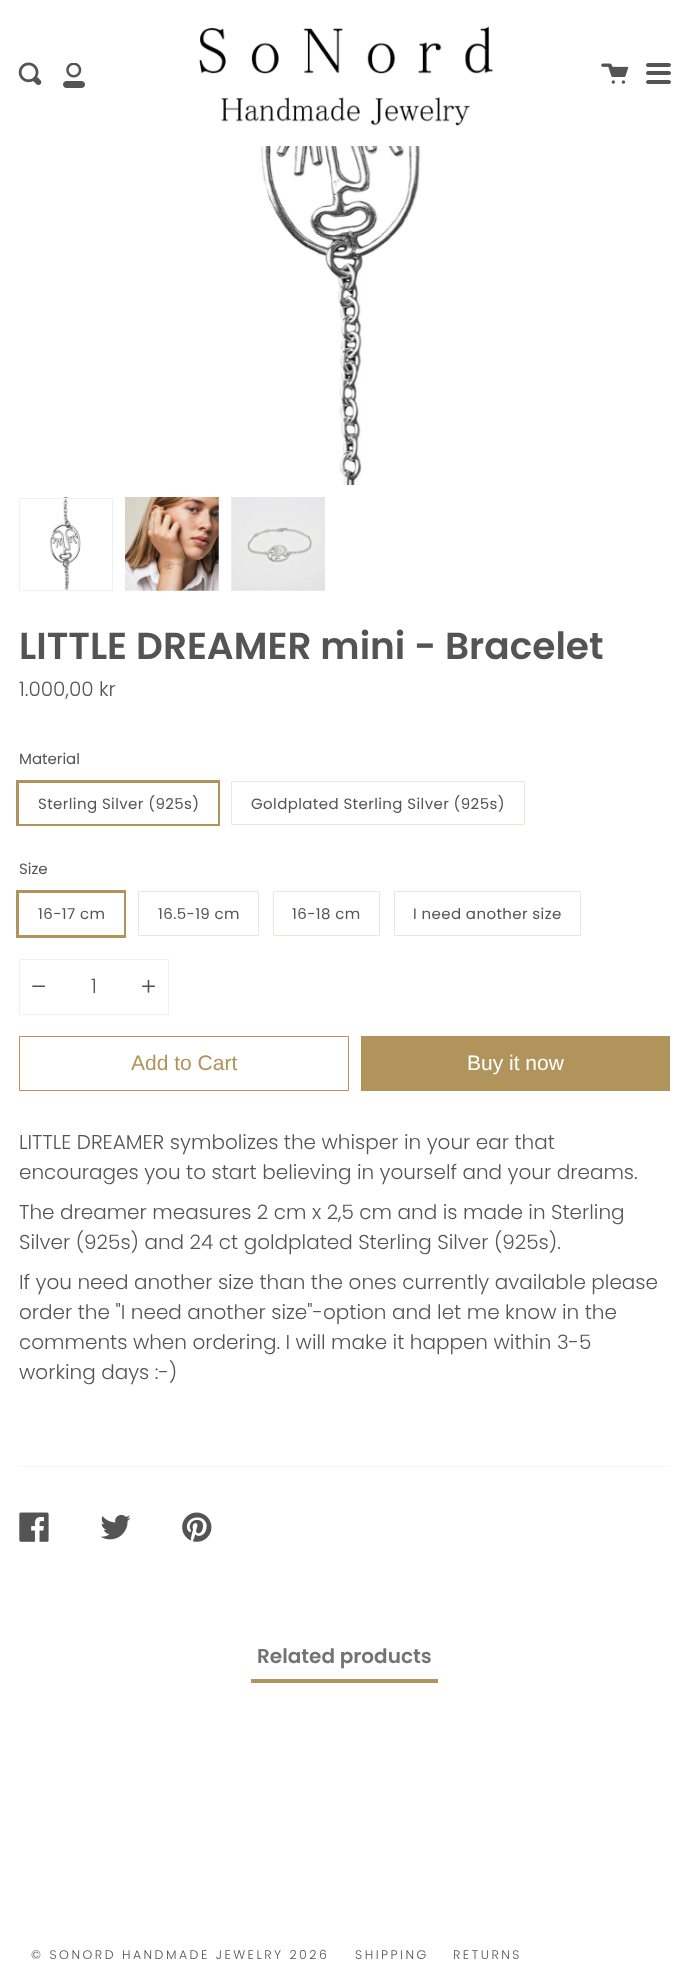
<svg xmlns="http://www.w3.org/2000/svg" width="688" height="1978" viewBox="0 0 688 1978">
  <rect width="100%" height="100%" fill="#fff"/>
  <image x="199" y="26" width="294" height="100" href="img/1.png"/>
  <image x="18" y="62" width="24" height="23" href="img/2.png"/>
  <image x="63" y="63" width="22" height="25" href="img/3.png"/>
  <image x="601" y="63" width="28" height="21" href="img/4.png"/>
  <path d="M648 63H668V67H648C647 67 646 66 646 65C646 64 647 63 648 63Z" fill="#545454"/>
  <path d="M650 63H669C670 63 671 64 671 65C671 66 670 67 669 67H650Z" fill="#545454"/>
  <path d="M648 71H668V75H648C647 75 646 74 646 73C646 72 647 71 648 71Z" fill="#545454"/>
  <path d="M650 71H669C670 71 671 72 671 73C671 74 670 75 669 75H650Z" fill="#545454"/>
  <path d="M648 80H668V84H648C647 84 646 83 646 82C646 81 647 80 648 80Z" fill="#545454"/>
  <path d="M650 80H669C670 80 671 81 671 82C671 83 670 84 669 84H650Z" fill="#545454"/>
  <image x="259" y="146" width="163" height="339" href="img/5.png"/>
  <image x="49" y="497" width="32" height="93" href="img/6.png"/>
  <path d="M19.5 498.5h93v92H19.5z" fill="none" stroke="#f0f0f0"/>
  <image x="125" y="497" width="94" height="94" href="img/7.png"/>
  <image x="231" y="497" width="94" height="94" href="img/8.png"/>
  <path d="M17.5 781.5h201v43H17.5z" fill="none" stroke="#b1945c" stroke-width="3"/>
  <path d="M19 783h199v41H19z" fill="#fff"/>
  <path d="M231.5 781.5h293v43H231.5z" fill="none" stroke="#e8e8e1"/>
  <path d="M17.5 891.5h107v45H17.5z" fill="none" stroke="#b1945c" stroke-width="3"/>
  <path d="M123 893h1v42H123z" fill="#fff"/>
  <path d="M138.5 891.5h120v44H138.5z" fill="none" stroke="#e8e8e1"/>
  <path d="M273.5 891.5h106v44H273.5z" fill="none" stroke="#e8e8e1"/>
  <path d="M394.5 891.5h186v44H394.5z" fill="none" stroke="#e8e8e1"/>
  <path d="M19.5 959.5h149v55H19.5z" fill="none" stroke="#f0f0f0"/>
  <image x="32" y="985" width="14" height="2" href="img/9.png"/>
  <image x="142" y="979" width="13" height="14" href="img/10.png"/>
  <path d="M19.5 1036.5h329v54H19.5z" fill="none" stroke="#b1945c"/>
  <path d="M361 1036h309v55H361z" fill="#b1945c"/>
  <path d="M19 1466h651v1H19z" fill="#f5f5f5"/>
  <image x="19" y="1512" width="30" height="30" href="img/11.png"/>
  <image x="100" y="1514" width="31" height="26" href="img/12.png"/>
  <image x="182" y="1512" width="30" height="30" href="img/13.png"/>
  <path d="M251 1679h187v4H251z" fill="#b1945c"/>
  <text x="19" y="659" font-family="Poppins" font-size="37.5" font-weight="600" fill="#545454">LITTLE DREAMER mini - Bracelet</text>
  <text x="19" y="696" font-family="Poppins" font-size="20" font-weight="300" fill="#545454">1.000,00 kr</text>
  <text x="19" y="764" font-family="Poppins" font-size="15" fill="#545454">Material</text>
  <g font-family="Poppins" font-size="15" letter-spacing="0.4" fill="#545454">
    <text x="38" y="809">Sterling Silver (925s)</text>
    <text x="251" y="809">Goldplated Sterling Silver (925s)</text>
  </g>
  <text x="19" y="874" font-family="Poppins" font-size="15" fill="#545454">Size</text>
  <g font-family="Poppins" font-size="15" letter-spacing="0.4" fill="#545454">
    <text x="38" y="919">16-17 cm</text>
    <text x="158" y="919">16.5-19 cm</text>
    <text x="292" y="919">16-18 cm</text>
    <text x="413" y="919">I need another size</text>
  </g>
  <text x="91" y="993" font-family="Poppins" font-size="20" font-weight="300" fill="#545454">1</text>
  <text x="131" y="1070" font-family="Liberation Sans" font-size="21" fill="#b1945c">Add to Cart</text>
  <text x="467" y="1070" font-family="Liberation Sans" font-size="21" fill="#fff">Buy it now</text>
  <g font-family="Poppins" font-size="20" font-weight="300" fill="#545454">
    <text x="19" y="1149">LITTLE DREAMER symbolizes the whisper in your ear that</text>
    <text x="19" y="1179">encourages you to start believing in yourself and your dreams.</text>
    <text x="19" y="1219">The dreamer measures 2 cm x 2,5 cm and is made in Sterling</text>
    <text x="19" y="1249">Silver (925s) and 24 ct goldplated Sterling Silver (925s).</text>
    <text x="19" y="1289">If you need another size than the ones currently available please</text>
    <text x="19" y="1319">order the "I need another size"-option and let me know in the</text>
    <text x="19" y="1349">comments when ordering. I will make it happen within 3-5</text>
    <text x="19" y="1379">working days :-)</text>
  </g>
  <text x="257" y="1663" font-family="Poppins" font-size="20" font-weight="600" fill="#737373">Related products</text>
  <g font-family="Poppins" font-size="12.5" font-weight="300" letter-spacing="2.5" fill="#545454">
    <text x="31" y="1959">© SONORD HANDMADE JEWELRY 2026</text>
    <text x="355" y="1959">SHIPPING</text>
    <text x="453" y="1959">RETURNS</text>
  </g>
</svg>
